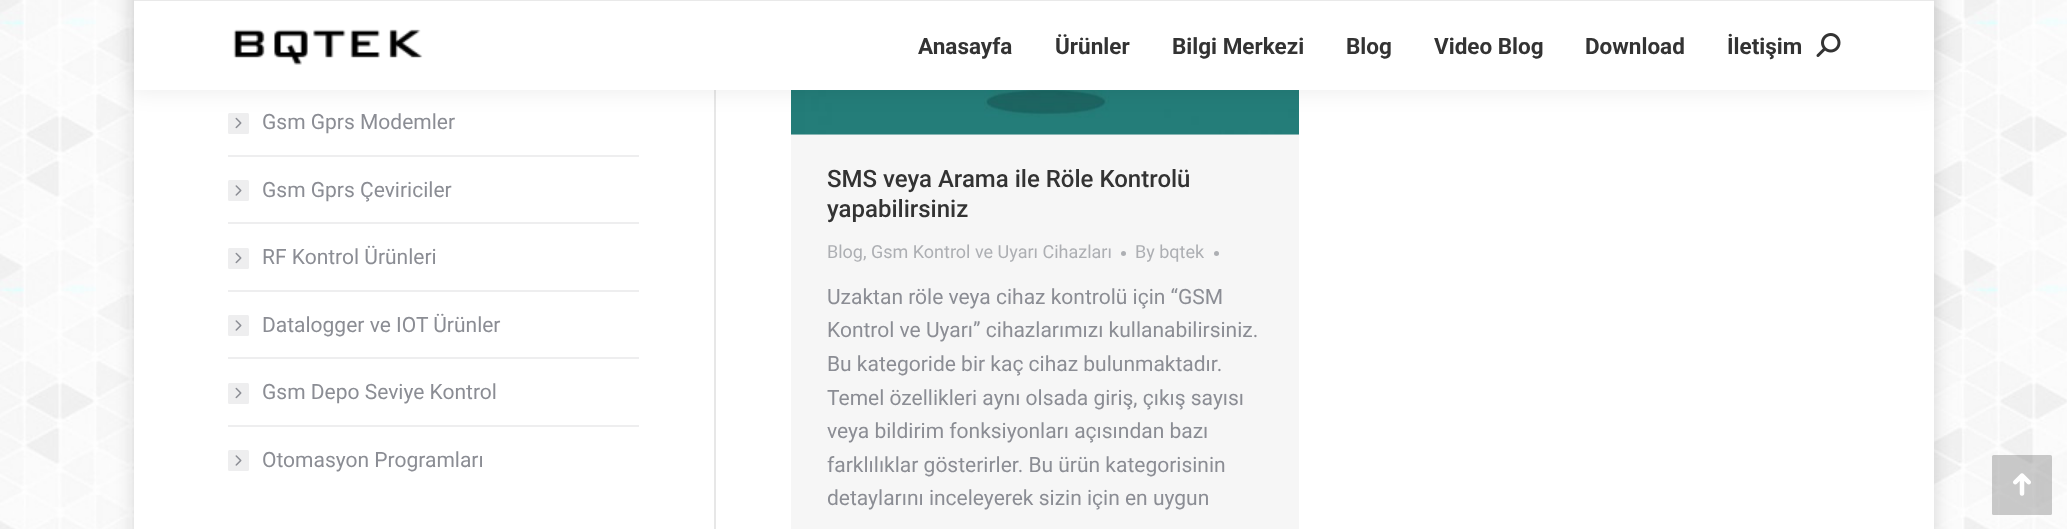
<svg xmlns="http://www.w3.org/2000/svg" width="2067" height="529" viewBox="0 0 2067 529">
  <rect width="100%" height="100%" fill="#fff"/>
  <image x="0" y="0" width="2067" height="529" href="img/1.png"/>
  <path d="M134 -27h1800v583H134z" fill="#00000026" filter="blur(9px)"/>
  <path d="M134 90h1800v439H134z" fill="#fff"/>
  <path d="M714 90h2v439H714z" fill="#e7e7e7"/>
  <rect x="228" y="113" width="21" height="21" rx="1.5" fill="#eeeeef"/>
  <image x="235" y="117" width="7" height="12" href="img/4.png"/>
  <path d="M791 134h508v395H791z" fill="#f6f6f6"/>
  <image x="791" y="90" width="508" height="45" href="img/6.png"/>
  <path d="M132 -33h1803v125H132z" fill="#00000012" filter="blur(11px)"/>
  <path d="M134 1h1800v89H134z" fill="#fff"/>
  <path d="M134 0h1800v1H134z" fill="#e9e9e9"/>
  <image x="233" y="29" width="190" height="36" href="img/2.png"/>
  <image x="1816" y="33" width="25" height="24" href="img/3.png"/>
  <path d="M228 155h411v2H228z" fill="#eeeeef"/>
  <rect x="228" y="180" width="21" height="21" rx="1.5" fill="#eeeeef"/>
  <image x="235" y="185" width="7" height="11" href="img/5.png"/>
  <path d="M228 222h411v2H228z" fill="#eeeeef"/>
  <rect x="228" y="248" width="21" height="21" rx="1.5" fill="#eeeeef"/>
  <image x="235" y="252" width="7" height="12" href="img/4.png"/>
  <path d="M228 290h411v2H228z" fill="#eeeeef"/>
  <rect x="228" y="315" width="21" height="21" rx="1.5" fill="#eeeeef"/>
  <image x="235" y="320" width="7" height="11" href="img/5.png"/>
  <path d="M228 357h411v2H228z" fill="#eeeeef"/>
  <rect x="228" y="383" width="21" height="21" rx="1.5" fill="#eeeeef"/>
  <image x="235" y="387" width="7" height="12" href="img/4.png"/>
  <path d="M228 425h411v2H228z" fill="#eeeeef"/>
  <rect x="228" y="450" width="21" height="21" rx="1.5" fill="#eeeeef"/>
  <image x="235" y="455" width="7" height="11" href="img/5.png"/>
  <circle cx="1123.5" cy="253.5" r="2.5" fill="#adafb3"/>
  <circle cx="1216.5" cy="253.5" r="2.5" fill="#adafb3"/>
  <rect x="1992" y="455" width="60" height="60" rx="1.5" fill="#00000033"/>
  <image x="2013" y="473" width="18" height="23" href="img/7.png"/>
  <g font-family="Roboto" font-size="22.5" font-weight="bold" fill="#333">
    <text x="918" y="54">Anasayfa</text>
    <text x="1055" y="54">Ürünler</text>
    <text x="1172" y="54">Bilgi Merkezi</text>
    <text x="1346" y="54">Blog</text>
    <text x="1434" y="54">Video Blog</text>
    <text x="1585" y="54">Download</text>
    <text x="1727" y="54">İletişim</text>
  </g>
  <g font-family="Roboto" font-size="21" fill="#8b8d94">
    <text x="262" y="129">Gsm Gprs Modemler</text>
    <text x="262" y="197">Gsm Gprs Çeviriciler</text>
    <text x="262" y="264">RF Kontrol Ürünleri</text>
    <text x="262" y="332">Datalogger ve IOT Ürünler</text>
    <text x="262" y="399">Gsm Depo Seviye Kontrol</text>
    <text x="262" y="467">Otomasyon Programları</text>
  </g>
  <g font-family="Roboto" font-size="24" font-weight="500" fill="#333">
    <text x="827" y="187">SMS veya Arama ile Röle Kontrolü</text>
    <text x="827" y="217">yapabilirsiniz</text>
  </g>
  <g font-family="Roboto" font-size="18" fill="#adafb3">
    <text x="827" y="258">Blog, Gsm Kontrol ve Uyarı Cihazları</text>
    <text x="1135" y="258">By bqtek</text>
  </g>
  <g font-family="Roboto" font-size="21" fill="#8b8d94">
    <text x="827" y="304">Uzaktan röle veya cihaz kontrolü için “GSM</text>
    <text x="827" y="337">Kontrol ve Uyarı” cihazlarımızı kullanabilirsiniz.</text>
    <text x="827" y="371">Bu kategoride bir kaç cihaz bulunmaktadır.</text>
    <text x="827" y="405">Temel özellikleri aynı olsada giriş, çıkış sayısı</text>
    <text x="827" y="438">veya bildirim fonksiyonları açısından bazı</text>
    <text x="827" y="472">farklılıklar gösterirler. Bu ürün kategorisinin</text>
    <text x="827" y="505">detaylarını inceleyerek sizin için en uygun</text>
  </g>
</svg>
